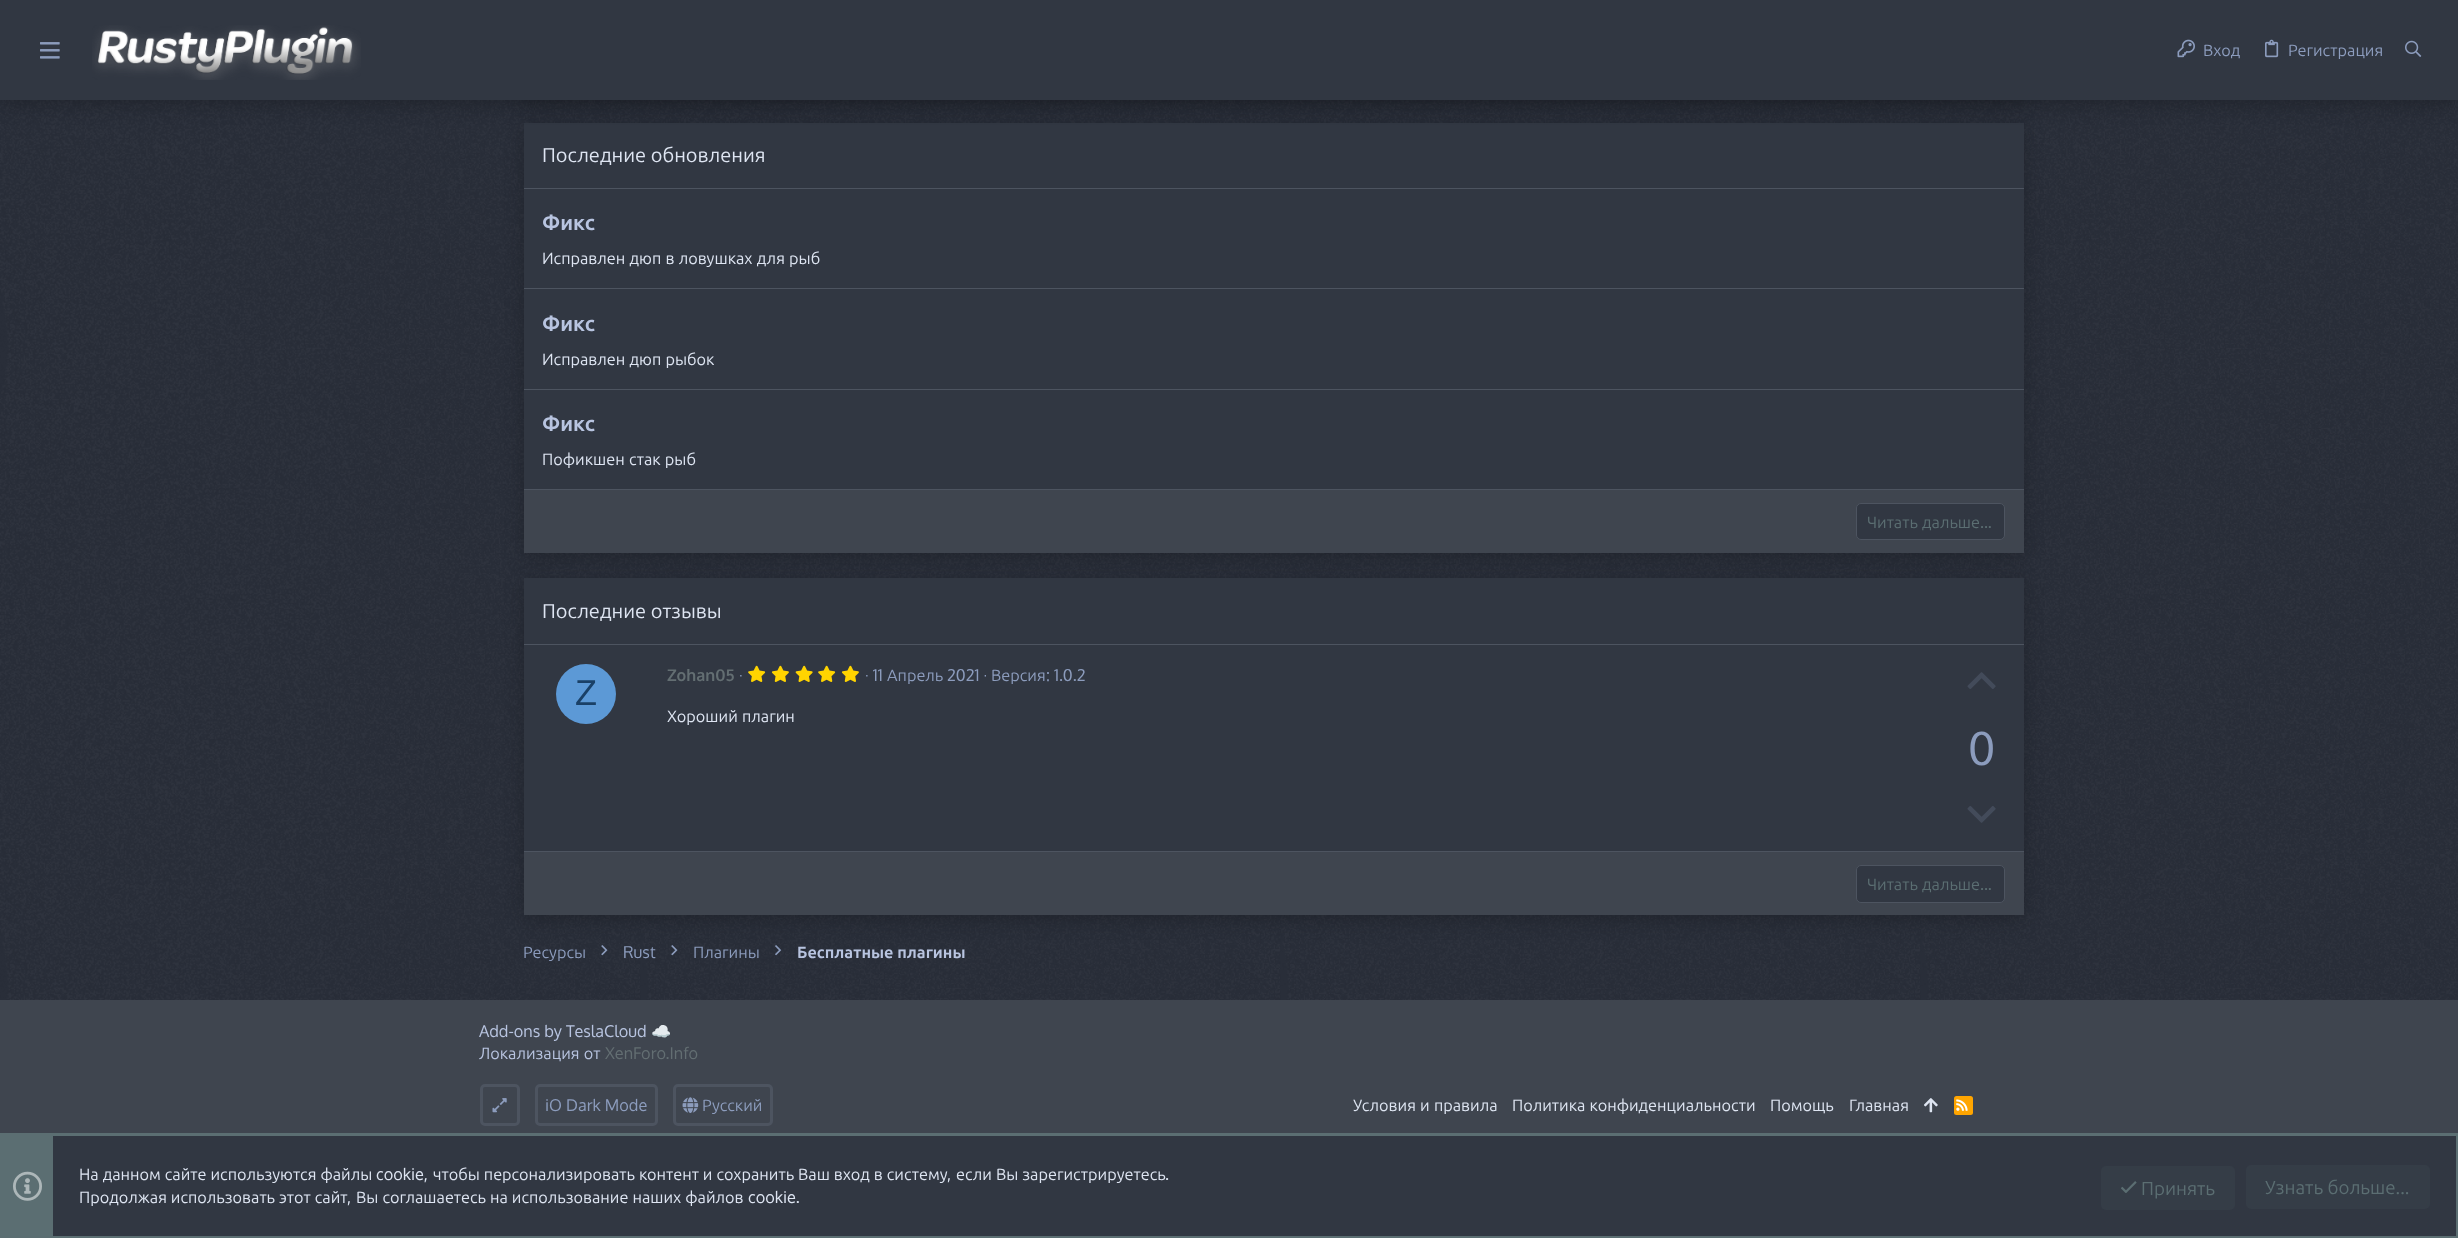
<svg xmlns="http://www.w3.org/2000/svg" width="2458" height="1238" viewBox="0 0 2458 1238">
  <rect width="100%" height="100%" fill="#292e39"/>
  <image x="350" y="100" width="2108" height="900" href="img/6.png"/>
  <image x="0" y="100" width="350" height="900" href="img/7.png"/>
  <path d="M524 -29h1500v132H524z" fill="#00000033" filter="blur(9.5px)"/>
  <path d="M524 128h1500v430H524z" fill="#00000033" filter="blur(9.5px)"/>
  <path d="M524 123h1500v366H524z" fill="#313742"/>
  <path d="M0 5h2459v100H0z" fill="#00000033" filter="blur(9.5px)"/>
  <path d="M0 0h2458v100H0z" fill="#313742"/>
  <image x="40" y="42" width="20" height="17" href="img/1.png"/>
  <image x="92" y="25" width="269" height="55" href="img/2.png"/>
  <image x="2177" y="39" width="18" height="19" href="img/3.png"/>
  <image x="2265" y="39" width="14" height="19" href="img/4.png"/>
  <image x="2405" y="40" width="17" height="17" href="img/5.png"/>
  <path d="M524 188h1500v1H524z" fill="#4d5460"/>
  <path d="M524 288h1500v1H524z" fill="#4d5460"/>
  <path d="M524 389h1500v1H524z" fill="#4d5460"/>
  <path d="M524 490h1500v63H524z" fill="#3f454f"/>
  <path d="M524 489h1500v1H524z" fill="#4d5460"/>
  <rect x="1856.5" y="503.5" width="148" height="36" rx="4.5" fill="#313742" stroke="#4d5460"/>
  <path d="M524 583h1500v337H524z" fill="#00000033" filter="blur(9.5px)"/>
  <path d="M524 578h1500v273H524z" fill="#313742"/>
  <path d="M524 644h1500v1H524z" fill="#4d5460"/>
  <circle cx="586" cy="694" r="30" fill="#5c99d6"/>
  <image x="748" y="665" width="18" height="17" href="img/8.png"/>
  <image x="771" y="665" width="18" height="17" href="img/9.png"/>
  <image x="795" y="665" width="18" height="17" href="img/10.png"/>
  <image x="818" y="665" width="18" height="17" href="img/8.png"/>
  <image x="841" y="665" width="18" height="17" href="img/9.png"/>
  <image x="1967" y="672" width="29" height="17" href="img/11.png"/>
  <image x="1967" y="806" width="29" height="17" href="img/12.png"/>
  <path d="M524 852h1500v63H524z" fill="#3f454f"/>
  <path d="M524 851h1500v1H524z" fill="#4d5460"/>
  <rect x="1856.5" y="865.5" width="148" height="37" rx="4.5" fill="#313742" stroke="#4d5460"/>
  <image x="601" y="945" width="7" height="11" href="img/13.png"/>
  <image x="671" y="945" width="7" height="11" href="img/14.png"/>
  <image x="775" y="945" width="7" height="11" href="img/15.png"/>
  <path d="M0 1000h2458v133H0z" fill="#3f454f"/>
  <rect x="481.5" y="1085.5" width="37" height="39" rx="3.5" fill="none" stroke="#4d5460" stroke-width="3"/>
  <image x="492" y="1098" width="15" height="15" href="img/16.png"/>
  <rect x="536.5" y="1085.5" width="120" height="39" rx="3.5" fill="none" stroke="#4d5460" stroke-width="3"/>
  <rect x="674.5" y="1085.5" width="97" height="39" rx="3.5" fill="none" stroke="#4d5460" stroke-width="3"/>
  <image x="682" y="1097" width="17" height="16" href="img/17.png"/>
  <image x="1924" y="1098" width="14" height="15" href="img/18.png"/>
  <rect x="1954" y="1096" width="19" height="19" rx="2.5" fill="#ffa500"/>
  <image x="1956" y="1099" width="12" height="12" href="img/19.png"/>
  <path d="M53 1136h2403v100H53z" fill="#313742"/>
  <path d="M1.5 1134.5h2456v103H1.5z" fill="none" stroke="#5b6e72" stroke-width="3"/>
  <path d="M3 1136h50v100H3z" fill="#5b6e72"/>
  <image x="13" y="1171" width="29" height="30" href="img/20.png"/>
  <rect x="2101" y="1166" width="134" height="44" rx="5" fill="#353d47"/>
  <image x="2121" y="1181" width="16" height="12" href="img/21.png"/>
  <rect x="2246" y="1165" width="184" height="44" rx="5" fill="#353d47"/>
  <g font-family="Ubuntu" font-size="16.25" fill="#8c9cbd">
    <text x="2203" y="56">Вход</text>
    <text x="2288" y="56">Регистрация</text>
  </g>
  <text x="542" y="162" font-family="Ubuntu" font-size="20" fill="#dee5f2">Последние обновления</text>
  <text x="542" y="230" font-family="Ubuntu" font-size="21" font-weight="bold" fill="#b8c4e0">Фикс</text>
  <text x="542" y="264" word-spacing="0.5" font-family="Ubuntu" font-size="16.25" fill="#dee5f2">Исправлен дюп в ловушках для рыб</text>
  <text x="542" y="331" font-family="Ubuntu" font-size="21" font-weight="bold" fill="#b8c4e0">Фикс</text>
  <text x="542" y="365" word-spacing="0.5" font-family="Ubuntu" font-size="16.25" fill="#dee5f2">Исправлен дюп рыбок</text>
  <text x="542" y="431" font-family="Ubuntu" font-size="21" font-weight="bold" fill="#b8c4e0">Фикс</text>
  <text x="542" y="465" word-spacing="0.5" font-family="Ubuntu" font-size="16.25" fill="#dee5f2">Пофикшен стак рыб</text>
  <text x="1867" y="528" word-spacing="0.5" font-family="Ubuntu" font-size="16.25" fill="#5b6e72">Читать дальше</text>
  <text x="1980" y="528" font-family="Oxygen" font-size="16.25" fill="#5b6e72">...</text>
  <text x="542" y="618" font-family="Ubuntu" font-size="20" fill="#dee5f2">Последние отзывы</text>
  <text x="575" y="705" font-family="Liberation Sans" font-size="36" fill="#1a4066">Z</text>
  <text x="667" y="681" font-family="Oxygen" font-size="16.25" font-weight="bold" fill="#636e72">Zohan05</text>
  <g font-family="Oxygen" font-size="16.25" fill="#8c9cbd">
    <text x="739" y="681">·</text>
    <text x="865" y="681">· 11</text>
  </g>
  <text x="887" y="681" font-family="Ubuntu" font-size="16.25" fill="#8c9cbd">Апрель</text>
  <text x="947" y="681" font-family="Oxygen" font-size="16.25" fill="#8c9cbd">2021 ·</text>
  <text x="991" y="681" font-family="Ubuntu" font-size="16.25" fill="#8c9cbd">Версия</text>
  <text x="1046" y="681" font-family="Oxygen" font-size="16.25" fill="#8c9cbd">: 1.0.2</text>
  <text x="667" y="722" word-spacing="0.5" font-family="Ubuntu" font-size="16.25" fill="#dee5f2">Хороший плагин</text>
  <text x="1968" y="765" font-family="Oxygen" font-size="45" fill="#8c9cbd">0</text>
  <text x="1867" y="890" word-spacing="0.5" font-family="Ubuntu" font-size="16.25" fill="#5b6e72">Читать дальше</text>
  <text x="1980" y="890" font-family="Oxygen" font-size="16.25" fill="#5b6e72">...</text>
  <text x="523" y="958" font-family="Ubuntu" font-size="16.25" fill="#8c9cbd">Ресурсы</text>
  <text x="623" y="958" font-family="Oxygen" font-size="16.25" fill="#8c9cbd">Rust</text>
  <text x="693" y="958" font-family="Ubuntu" font-size="16.25" fill="#8c9cbd">Плагины</text>
  <text x="797" y="958" font-family="Ubuntu" font-size="16.25" font-weight="bold" fill="#b8c4e0">Бесплатные плагины</text>
  <text x="479" y="1037" font-family="Oxygen" font-size="16.25" fill="#b8c4e0">Add-ons by TeslaCloud</text>
  <text x="651" y="1037" font-family="Noto Color Emoji" font-size="16.25" fill="#b8c4e0">☁️</text>
  <text x="479" y="1059" word-spacing="0.5" font-family="Ubuntu" font-size="16.25" fill="#b8c4e0">Локализация от</text>
  <text x="605" y="1059" font-family="Oxygen" font-size="16.25" fill="#636e72">XenForo.Info</text>
  <text x="545" y="1111" font-family="Oxygen" font-size="16.25" fill="#8c9cbd">iO Dark Mode</text>
  <text x="702" y="1111" font-family="Ubuntu" font-size="16.25" fill="#8c9cbd">Русский</text>
  <g font-family="Ubuntu" font-size="16.25" fill="#dee5f2">
    <text x="1353" y="1111" word-spacing="0.5">Условия и правила</text>
    <text x="1512" y="1111" word-spacing="0.5">Политика конфиденциальности</text>
    <text x="1770" y="1111">Помощь</text>
    <text x="1849" y="1111">Главная</text>
    <text x="79" y="1180" word-spacing="0.25">На данном сайте используются файлы</text>
  </g>
  <text x="376" y="1180" font-family="Oxygen" font-size="16.25" fill="#dee5f2">cookie,</text>
  <text x="433" y="1180" word-spacing="0.25" font-family="Ubuntu" font-size="16.25" fill="#dee5f2">чтобы персонализировать контент и сохранить Ваш вход в систему</text>
  <text x="947" y="1180" font-family="Oxygen" font-size="16.25" fill="#dee5f2">,</text>
  <text x="956" y="1180" word-spacing="0.25" font-family="Ubuntu" font-size="16.25" fill="#dee5f2">если Вы зарегистрируетесь</text>
  <text x="1165" y="1180" font-family="Oxygen" font-size="16.25" fill="#dee5f2">.</text>
  <text x="79" y="1203" word-spacing="0.25" font-family="Ubuntu" font-size="16.25" fill="#dee5f2">Продолжая использовать этот сайт</text>
  <text x="347" y="1203" font-family="Oxygen" font-size="16.25" fill="#dee5f2">,</text>
  <text x="356" y="1203" word-spacing="0.25" font-family="Ubuntu" font-size="16.25" fill="#dee5f2">Вы соглашаетесь на использование наших файлов</text>
  <text x="748" y="1203" font-family="Oxygen" font-size="16.25" fill="#dee5f2">cookie.</text>
  <g font-family="Ubuntu" font-size="18.75" fill="#5b6e72">
    <text x="2141" y="1195">Принять</text>
    <text x="2265" y="1194">Узнать больше...</text>
  </g>
</svg>
